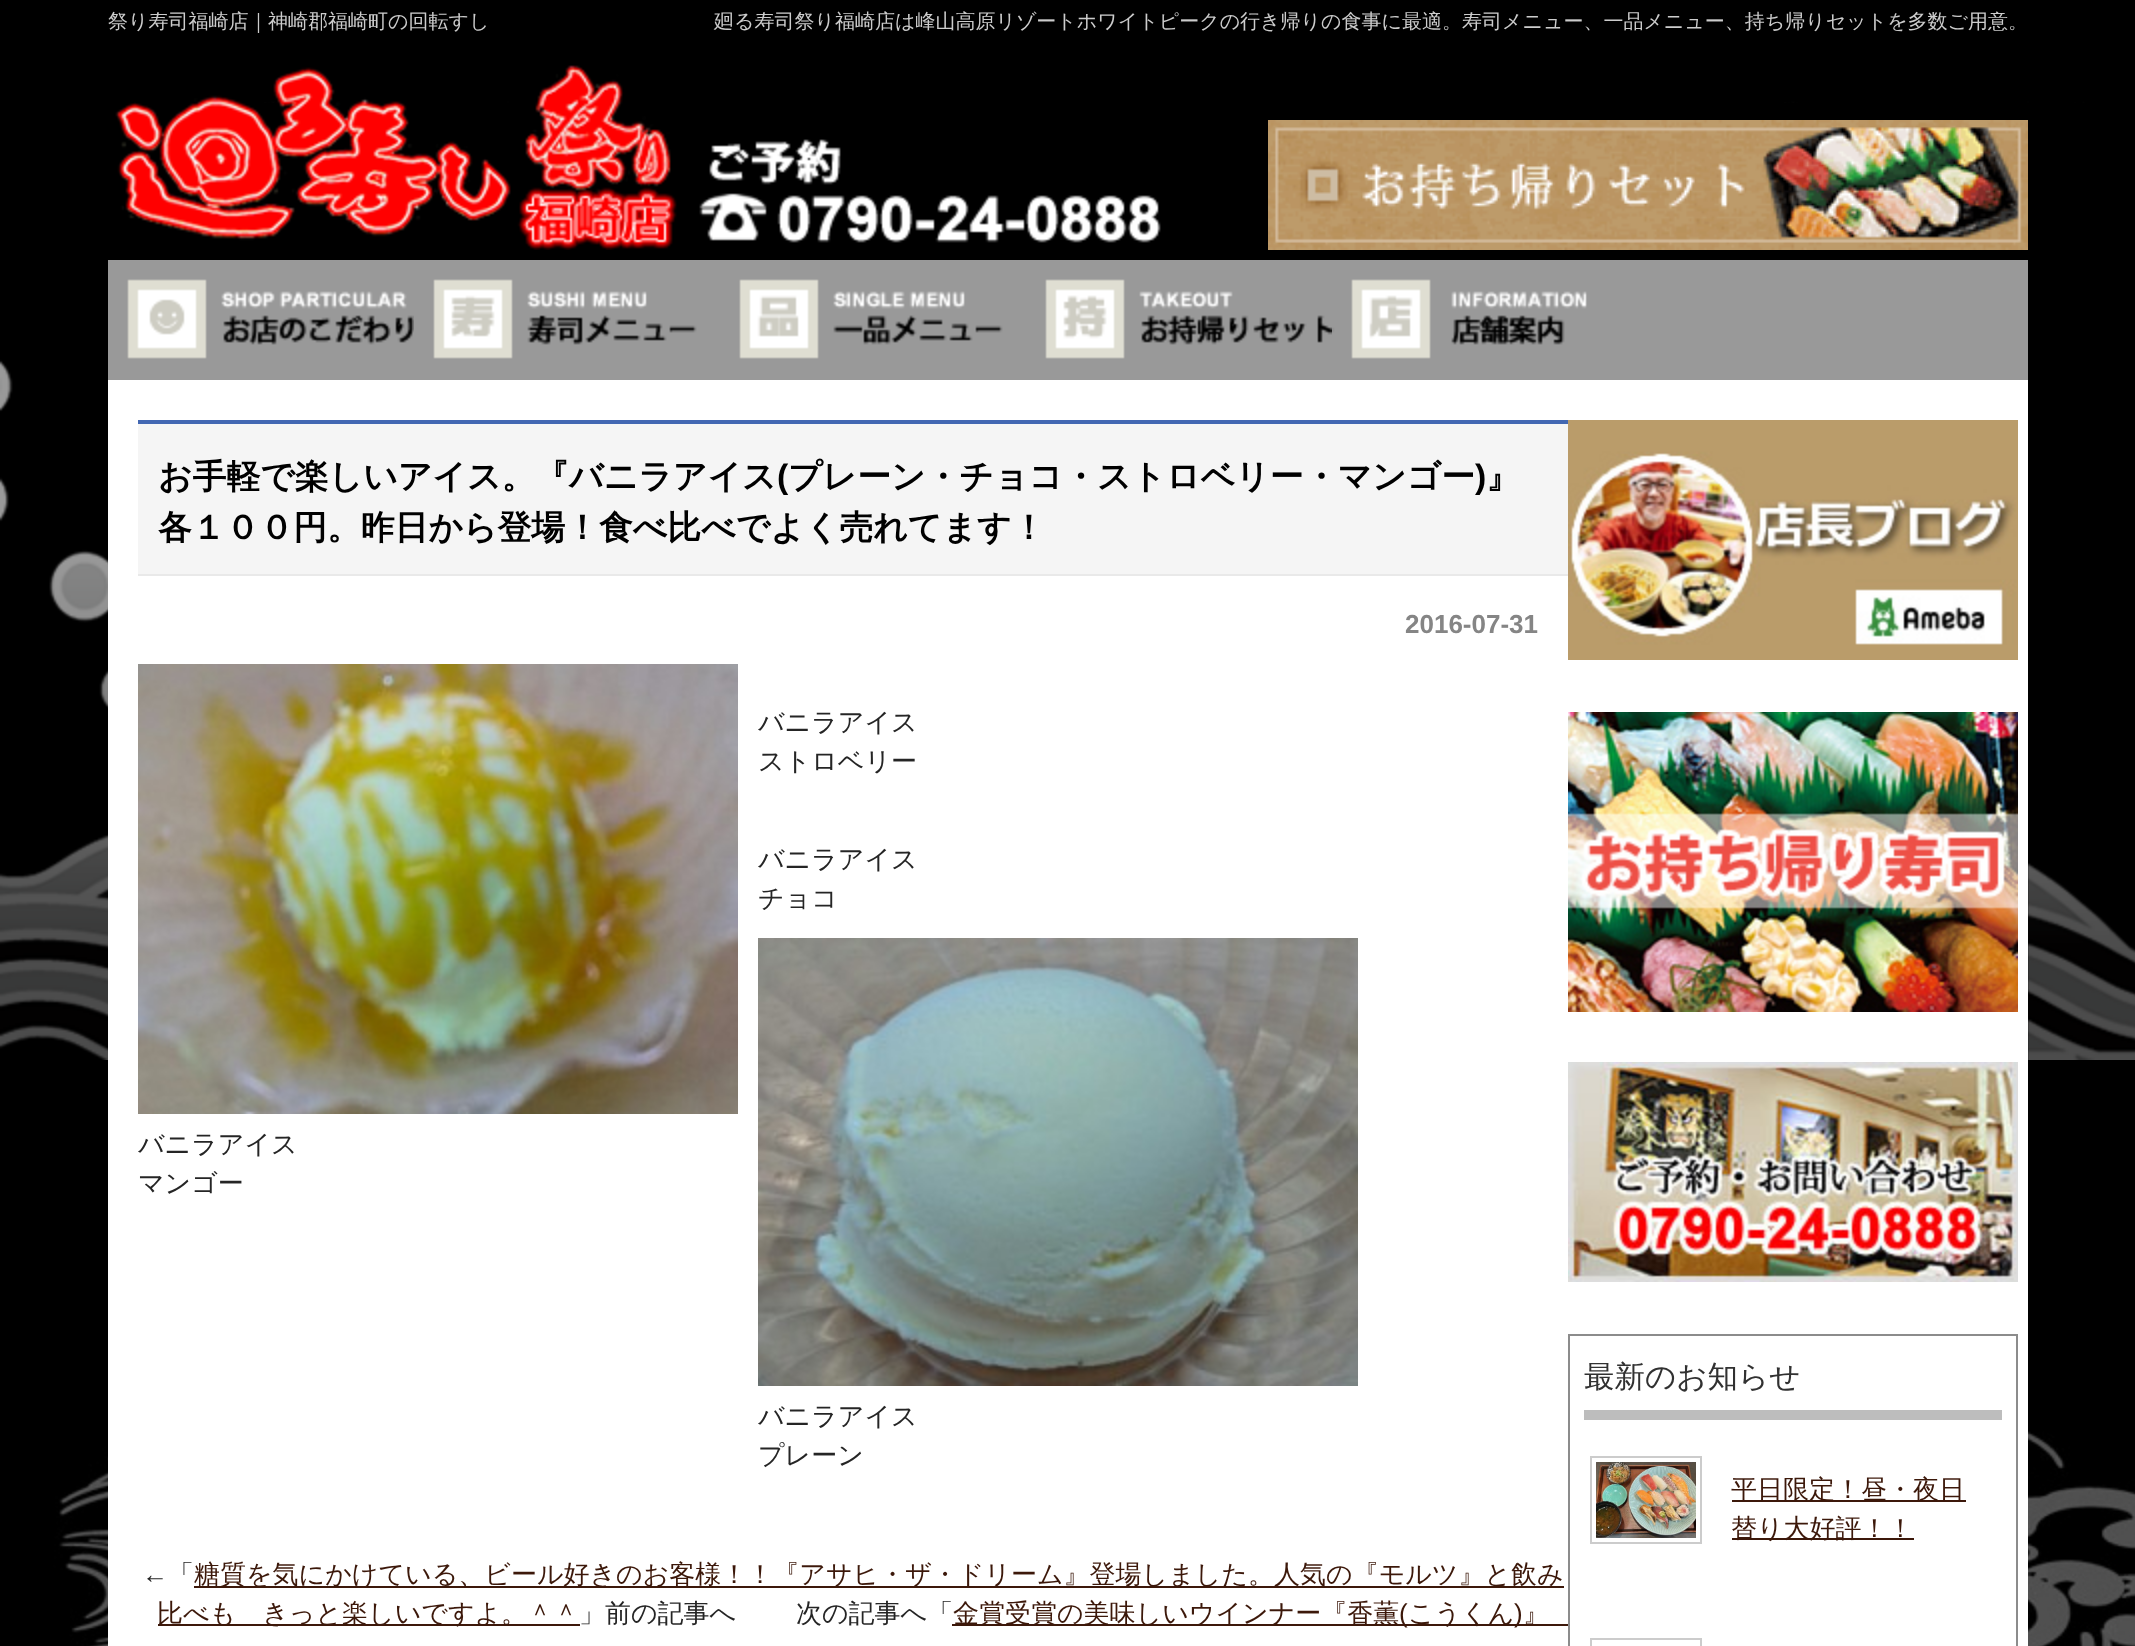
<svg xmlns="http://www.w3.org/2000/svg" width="2135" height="1646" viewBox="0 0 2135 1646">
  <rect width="100%" height="100%" fill="#fff"/>
  <image x="0" y="0" width="2135" height="1646" href="img/1.png"/>
  <image x="0" y="103" width="2135" height="957" href="img/2.png"/>
  <image x="115" y="65" width="1046" height="185" href="img/3.png"/>
  <image x="1268" y="120" width="760" height="130" href="img/4.png"/>
  <path d="M108 260h1920v120H108z" fill="#999"/>
  <image x="127" y="279" width="287" height="80" href="img/5.png"/>
  <image x="433" y="279" width="264" height="80" href="img/6.png"/>
  <image x="739" y="279" width="264" height="80" href="img/7.png"/>
  <image x="1045" y="279" width="287" height="80" href="img/8.png"/>
  <image x="1332" y="279" width="255" height="80" href="img/9.png"/>
  <path d="M108 380h1920v1266H108z" fill="#fff"/>
  <path d="M138 424h1430v150H138z" fill="#f5f5f5"/>
  <path d="M138 420h1430v4H138z" fill="#4267b2"/>
  <path d="M138 574h1430v2H138z" fill="#e9e9e9"/>
  <image x="138" y="664" width="600" height="450" href="img/10.png"/>
  <image x="758" y="938" width="600" height="448" href="img/11.png"/>
  <path d="M194 1586h1370v2H194z" fill="#3c180a"/>
  <path d="M158 1624h422v2H158z" fill="#3c180a"/>
  <path d="M952 1624h622v2H952z" fill="#3c180a"/>
  <image x="1568" y="420" width="450" height="240" href="img/12.png"/>
  <image x="1568" y="712" width="450" height="300" href="img/13.png"/>
  <image x="1568" y="1062" width="450" height="220" href="img/14.png"/>
  <path d="M1570 1624h4v2H1570z" fill="#fff"/>
  <path d="M1569 1335h448v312H1569z" fill="none" stroke="#8c8c8c" stroke-width="2"/>
  <path d="M1584 1410h418v10H1584z" fill="#bdbdbd"/>
  <path d="M1591 1457h110v86H1591z" fill="none" stroke="#ccc" stroke-width="2"/>
  <image x="1596" y="1462" width="100" height="76" href="img/15.png"/>
  <path d="M1732 1500h234v2H1732z" fill="#3c180a"/>
  <path d="M1732 1538h182v2H1732z" fill="#3c180a"/>
  <path d="M1591 1639h110v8H1591z" fill="none" stroke="#ccc" stroke-width="2"/>
  <g font-family="WenQuanYi Zen Hei" font-size="20" font-weight="500" fill="#ccc">
    <text x="108" y="28">祭り寿司福崎店｜神崎郡福崎町の回転すし</text>
    <text x="714" y="28">廻る寿司祭り福崎店は峰山高原リゾートホワイトピークの行き帰りの食事に最適。寿司メニュー、一品メニュー、持ち帰りセットを多数ご用意。</text>
  </g>
  <text x="158" y="488" font-family="WenQuanYi Zen Hei" font-size="33.8" font-weight="bold" fill="#000">お手軽で楽しいアイス。『バニラアイス</text>
  <text x="777" y="488" font-family="Liberation Sans" font-size="33.8" font-weight="bold" fill="#000">(</text>
  <text x="788" y="488" font-family="WenQuanYi Zen Hei" font-size="33.8" font-weight="bold" fill="#000">プレーン・チョコ・ストロベリー・マンゴー</text>
  <text x="1475" y="488" font-family="Liberation Sans" font-size="33.8" font-weight="bold" fill="#000">)</text>
  <g font-family="WenQuanYi Zen Hei" font-size="33.8" font-weight="bold" fill="#000">
    <text x="1486" y="488">』</text>
    <text x="158" y="539">各１００円。昨日から登場！食べ比べでよく売れてます！</text>
  </g>
  <text x="1405" y="633" font-family="Liberation Sans" font-size="26" font-weight="bold" fill="#858585">2016-07-31</text>
  <g font-family="WenQuanYi Zen Hei" font-size="26" font-weight="500" fill="#252525">
    <text x="758" y="731">バニラアイス</text>
    <text x="758" y="770">ストロベリー</text>
    <text x="758" y="868">バニラアイス</text>
    <text x="758" y="907">チョコ</text>
    <text x="138" y="1153">バニラアイス</text>
    <text x="138" y="1192">マンゴー</text>
    <text x="758" y="1425">バニラアイス</text>
    <text x="758" y="1464">プレーン</text>
    <text x="168" y="1583">「</text>
  </g>
  <text x="194" y="1583" font-family="WenQuanYi Zen Hei" font-size="26" font-weight="500" fill="#3c180a">糖質を気にかけている、ビール好きのお客様！！『アサヒ・ザ・ドリーム』登場しました。人気の『モルツ』と飲み</text>
  <text x="142" y="1583" font-family="Liberation Sans" font-size="26" fill="#252525">←</text>
  <text x="157" y="1622" font-family="WenQuanYi Zen Hei" font-size="26" font-weight="500" fill="#3c180a">比べも　きっと楽しいですよ。＾＾</text>
  <g font-family="WenQuanYi Zen Hei" font-size="26" font-weight="500" fill="#252525">
    <text x="579" y="1622">」前の記事へ</text>
    <text x="796" y="1622">次の記事へ「</text>
  </g>
  <text x="953" y="1622" font-family="WenQuanYi Zen Hei" font-size="26" font-weight="500" fill="#3c180a">金賞受賞の美味しいウインナー『香薫</text>
  <text x="1399" y="1622" font-family="Liberation Sans" font-size="26" fill="#3c180a">(</text>
  <text x="1408" y="1622" font-family="WenQuanYi Zen Hei" font-size="26" font-weight="500" fill="#3c180a">こうくん</text>
  <text x="1514" y="1622" font-family="Liberation Sans" font-size="26" fill="#3c180a">)</text>
  <text x="1523" y="1622" font-family="WenQuanYi Zen Hei" font-size="26" font-weight="500" fill="#3c180a">』</text>
  <text x="1584" y="1387" font-family="WenQuanYi Zen Hei" font-size="30.5" font-weight="500" fill="#313131">最新のお知らせ</text>
  <g font-family="WenQuanYi Zen Hei" font-size="26" font-weight="500" fill="#3c180a">
    <text x="1731" y="1498">平日限定！昼・夜日</text>
    <text x="1731" y="1537">替り大好評！！</text>
  </g>
</svg>
